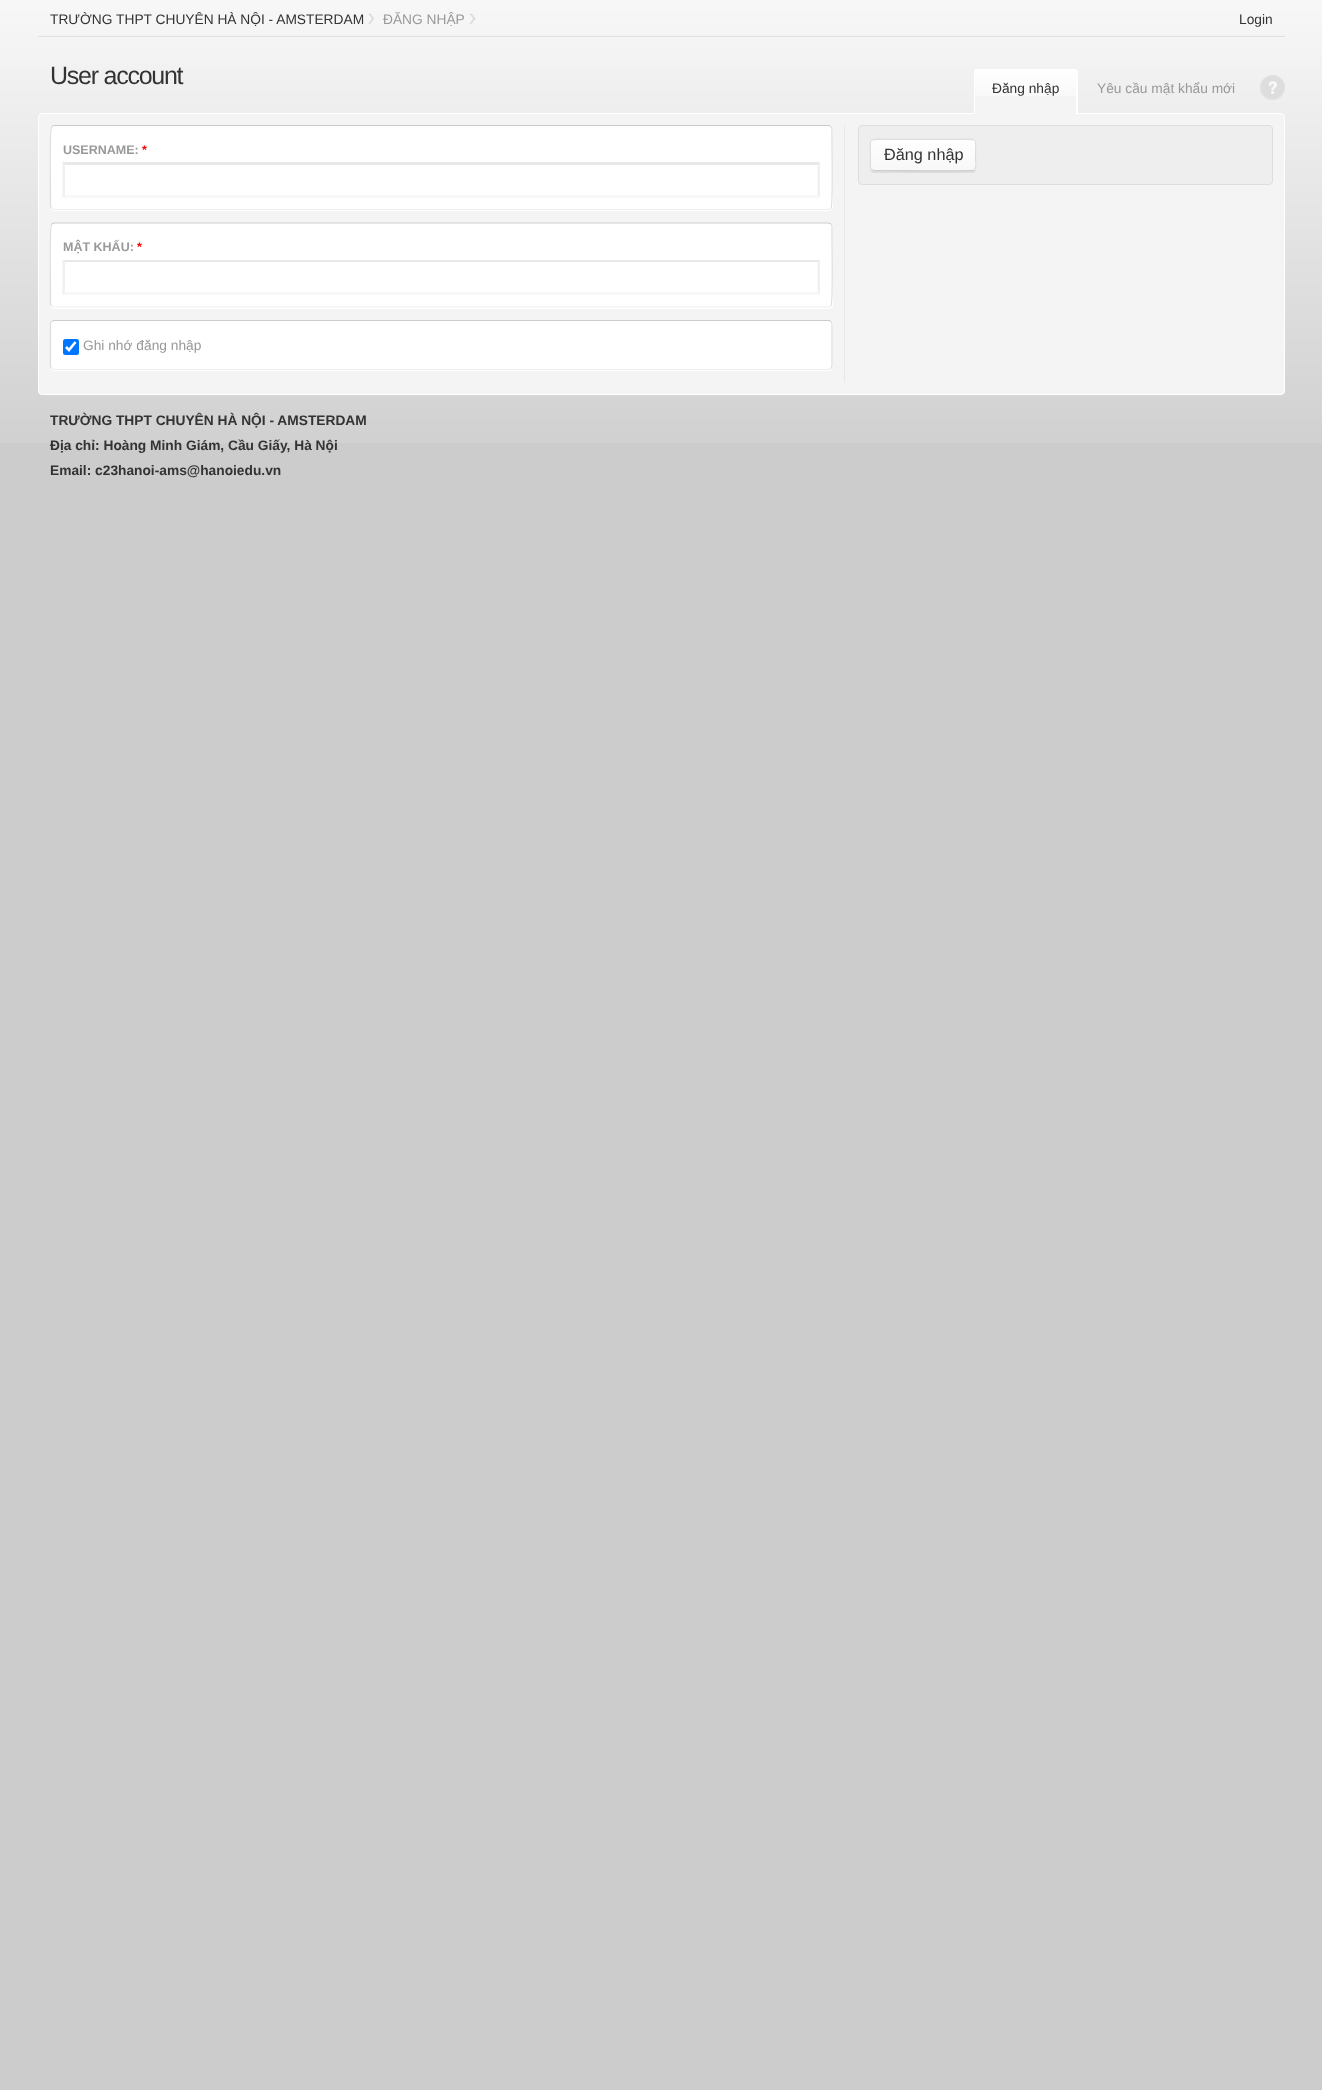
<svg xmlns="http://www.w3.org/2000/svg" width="1322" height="2090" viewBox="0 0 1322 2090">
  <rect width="100%" height="100%" fill="#ccc"/>
  <image x="0" y="0" width="1322" height="443" href="img/1.png"/>
  <path d="M38 36h1247v1H38z" fill="#e0e0e0"/>
  <image x="368" y="13" width="6" height="12" href="img/2.png"/>
  <image x="469" y="13" width="7" height="12" href="img/3.png"/>
  <rect x="38.5" y="113.5" width="1246" height="281" rx="3.5" fill="#f4f4f4" stroke="#fff"/>
  <path d="M978 69H1074C1076 69 1078 71 1078 73V114H974V73C974 71 976 69 978 69Z" fill="#f4f4f4"/>
  <image x="974" y="69" width="103" height="27" href="img/4.png"/>
  <path d="M978 69H1074C1076 69 1078 70 1078 72V114H974V72C974 70 975 69 978 69ZM978 70H1074C1075 70 1076 71 1076 72V114H975V72C975 71 976 70 978 70Z" fill="#fff" fill-rule="evenodd"/>
  <image x="1260" y="75" width="25" height="25" href="img/5.png"/>
  <image x="844" y="125" width="1" height="258" href="img/6.png"/>
  <path d="M50 206V207C50 209 52 211 54 211H829C831 211 833 209 833 207V130L832 128V206C832 208 831 210 829 210H54C52 210 50 208 50 206Z" fill="#fff"/>
  <rect x="50" y="125" width="783" height="85" rx="4" fill="#fff"/>
  <path d="M51.5 126.5L54 125.5H829L831 126.5" fill="none" stroke="#ccc" stroke-width="1.2"/>
  <path d="M831 126.5L832 129V141.5C832 149 833 206 831 208V208.5" fill="none" stroke="#ddd" stroke-width="1.2"/>
  <path d="M831 208.5L829 209.5H54L51.5 208.5" fill="none" stroke="#eee" stroke-width="1.2"/>
  <path d="M51.5 208.5L50.5 206V193.5C50.5 186 49.5 129 51.5 127V126.5" fill="none" stroke="#ddd" stroke-width="1.2"/>
  <path d="M62 162H820L818 165H65Z" fill="#e8e8e8"/>
  <path d="M820 162.5V197.5L817.5 195V165Z" fill="#f0f0f0"/>
  <path d="M820 198H62L65 195H818Z" fill="#f8f8f8"/>
  <path d="M62.5 197.5V162.5L65 165V195Z" fill="#f0f0f0"/>
  <path d="M50 304V305C50 307 52 309 54 309H829C831 309 833 307 833 305V228L832 226V304C832 306 831 308 829 308H54C52 308 50 306 50 304Z" fill="#fff"/>
  <rect x="50" y="223" width="783" height="85" rx="4" fill="#fff"/>
  <path d="M51.5 224L54 223H829L831 224" fill="none" stroke="#ccc" stroke-width="1.2"/>
  <path d="M831 224L832 226V239C832 246.5 833 303.5 831 305.5V306" fill="none" stroke="#ddd" stroke-width="1.2"/>
  <path d="M831 306L829 307H54L51.5 306" fill="none" stroke="#eee" stroke-width="1.2"/>
  <path d="M51.5 306L50.5 304V291C50.5 283.5 49.5 226.5 51.5 224.5V224" fill="none" stroke="#ddd" stroke-width="1.2"/>
  <path d="M62 260H820L818 262H65Z" fill="#e8e8e8"/>
  <path d="M820 260V295L817.5 292.5V262.5Z" fill="#f0f0f0"/>
  <path d="M820 295H62L65 292H818Z" fill="#f8f8f8"/>
  <path d="M62.5 295V260L65 262.5V292.5Z" fill="#f0f0f0"/>
  <path d="M50 366V367C50 369 52 371 54 371H829C831 371 833 369 833 367V325L832 323V366C832 368 831 370 829 370H54C52 370 50 368 50 366Z" fill="#fff"/>
  <rect x="50" y="320" width="783" height="50" rx="4" fill="#fff"/>
  <path d="M51.5 321.5L54 320.5H829L831 321.5" fill="none" stroke="#ccc" stroke-width="1.2"/>
  <path d="M831 321.5L832 323.5V366.5L831 368.5" fill="none" stroke="#ddd" stroke-width="1.2"/>
  <path d="M831 368.5L829 369.5H54L51.5 368.5" fill="none" stroke="#eee" stroke-width="1.2"/>
  <path d="M51.5 368.5L50.5 366.5V323.5L51.5 321.5" fill="none" stroke="#ddd" stroke-width="1.2"/>
  <rect x="63" y="339" width="16" height="16" rx="2.5" fill="#0075ff"/>
  <path d="M66 347L69 350L75.5 342" fill="none" stroke="#fff" stroke-width="2.6"/>
  <rect x="858.5" y="125.5" width="414" height="59" rx="3.5" fill="#eee" stroke="#ddd"/>
  <rect x="870" y="140" width="106" height="33" rx="4" fill="#ddd" filter="blur(0.5px)"/>
  <image x="870" y="138" width="106" height="33" href="img/7.png"/>
  <path d="M974.5 169.5V170C972.5 171.5 899 170.5 890 170.5H874L871.5 169.5" fill="none" stroke="#ccc" stroke-width="1.2"/>
  <path d="M871.5 169.5C869.5 167.5 870.5 161.5 870.5 159C870.5 135.5 866 139.5 890 139.5H956C980 139.5 975.5 135.5 975.5 159C975.5 161.5 977 167.5 974.5 169.5" fill="none" stroke="#ddd" stroke-width="1.2"/>
  <text x="50" y="24" font-family="Liberation Sans" font-size="13.75" fill="#333">TRƯỜNG THPT CHUYÊN HÀ NỘI - AMSTERDAM</text>
  <text x="383" y="24" font-family="Liberation Sans" font-size="13.75" fill="#999">ĐĂNG NHẬP</text>
  <text x="1239" y="24" font-family="Liberation Sans" font-size="13.75" fill="#333">Login</text>
  <text x="50" y="84" font-family="Liberation Sans" font-size="25" letter-spacing="-1.25" fill="#333">User account</text>
  <text x="992" y="93" font-family="Liberation Sans" font-size="13.75" fill="#333">Đăng nhập</text>
  <text x="1097" y="93" font-family="Liberation Sans" font-size="13.75" fill="#999">Yêu cầu mật khẩu mới</text>
  <text x="63" y="154" font-family="Liberation Sans" font-size="12.5" font-weight="bold" fill="#999">USERNAME:</text>
  <text x="142" y="154" font-family="Liberation Sans" font-size="12.5" font-weight="bold" fill="#f00">*</text>
  <text x="63" y="251" font-family="Liberation Sans" font-size="12.5" font-weight="bold" fill="#999">MẬT KHẨU:</text>
  <text x="137" y="251" font-family="Liberation Sans" font-size="12.5" font-weight="bold" fill="#f00">*</text>
  <text x="83" y="350" font-family="Liberation Sans" font-size="13.75" fill="#999">Ghi nhớ đăng nhập</text>
  <text x="884" y="160" font-family="Liberation Sans" font-size="16.25" fill="#333">Đăng nhập</text>
  <g font-family="Liberation Sans" font-size="13.75" font-weight="bold" fill="#333">
    <text x="50" y="425">TRƯỜNG THPT CHUYÊN HÀ NỘI - AMSTERDAM</text>
    <text x="50" y="450">Địa chỉ: Hoàng Minh Giám, Cầu Giấy, Hà Nội</text>
    <text x="50" y="475">Email: c23hanoi-ams@hanoiedu.vn</text>
  </g>
</svg>
